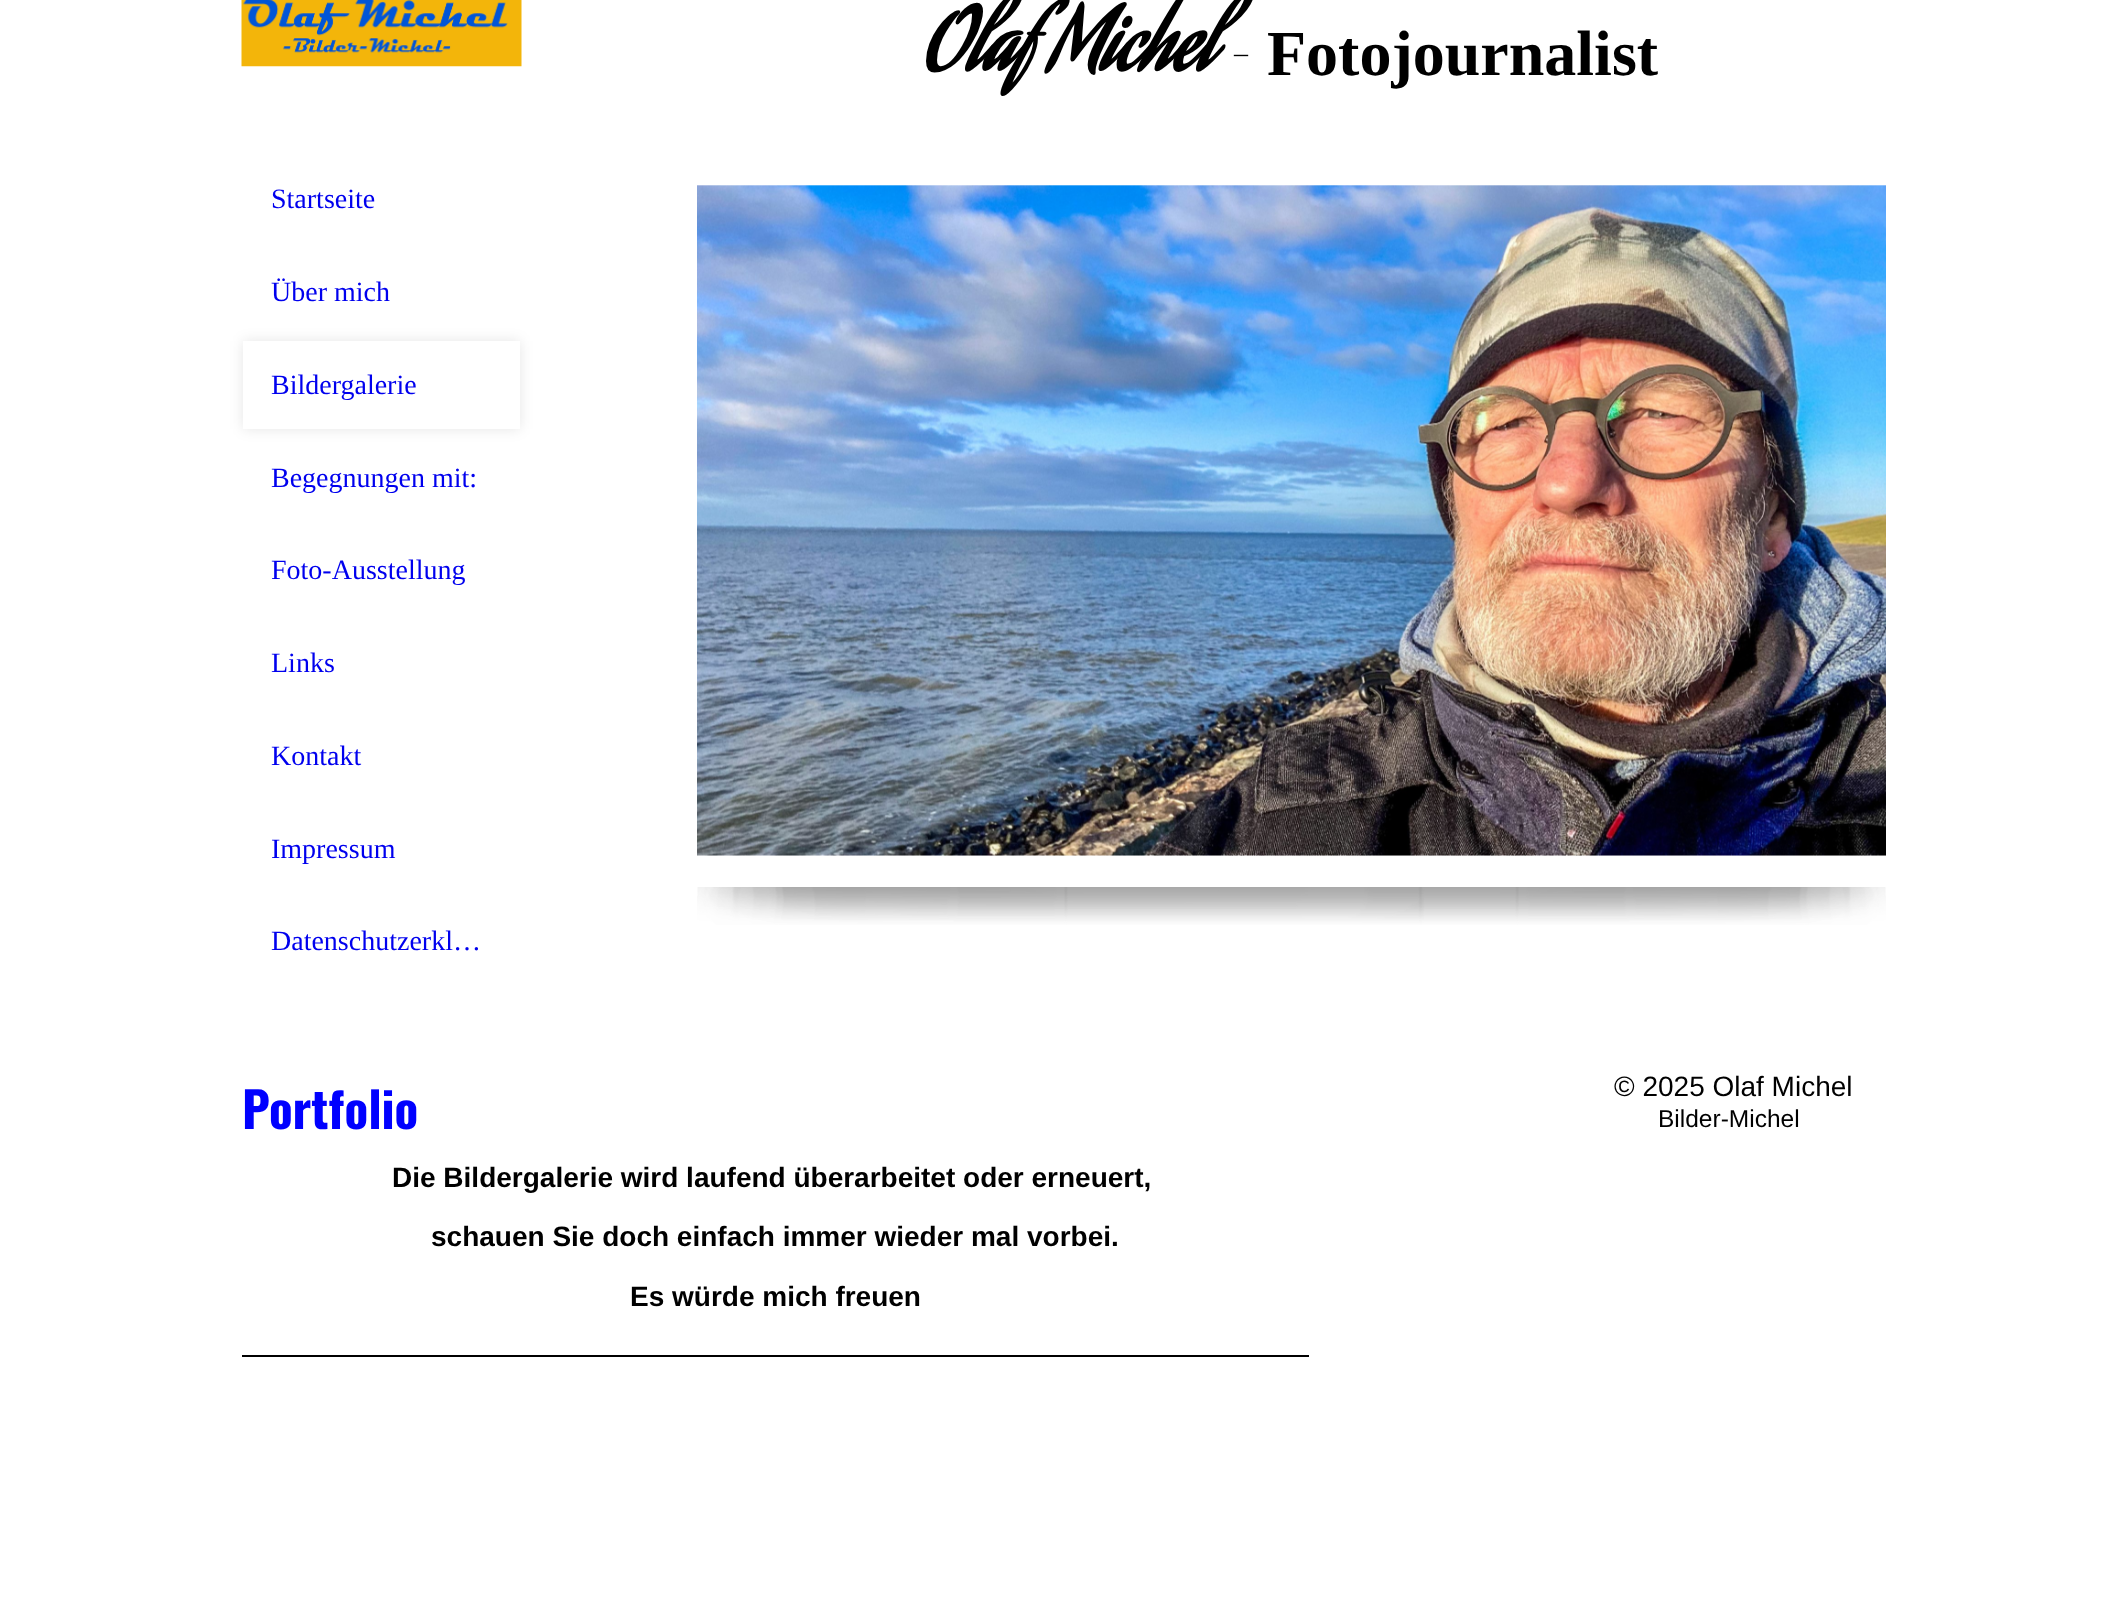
<svg xmlns="http://www.w3.org/2000/svg" width="2127" height="1622" viewBox="0 0 2127 1622">
  <defs>
    <clipPath id="clip1"><path d="M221 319H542V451H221ZM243 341H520V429H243Z" clip-rule="evenodd"/></clipPath>
  </defs>
  <rect width="100%" height="100%" fill="#fff"/>
  <image x="241" y="0" width="281" height="67" href="img/1.png"/>
  <g clip-path="url(#clip1)">
    <path d="M243 341h277v88H243z" fill="#0000001a" filter="blur(7px)"/>
  </g>
  <image x="697" y="185" width="1189" height="671" href="img/2.png"/>
  <image x="697" y="887" width="1189" height="38" href="img/3.png"/>
  <path d="M242 1355h1067v2H242z" fill="#000"/>
  <text x="926" y="70" font-family="Aguafina Script" font-size="85" font-weight="bold" fill="#000">Olaf Michel</text>
  <text x="1267" y="75" font-family="Liberation Serif" font-size="64" font-weight="bold" fill="#000">Fotojournalist</text>
  <text x="1234" y="62" font-family="Liberation Serif" font-size="28" fill="#000">–</text>
  <g font-family="Liberation Serif" font-size="28" fill="#00e">
    <text x="271" y="208">Startseite</text>
    <text x="271" y="301">Über mich</text>
    <text x="271" y="394">Bildergalerie</text>
    <text x="271" y="487">Begegnungen mit:</text>
    <text x="271" y="579">Foto-Ausstellung</text>
    <text x="271" y="672">Links</text>
    <text x="271" y="765">Kontakt</text>
    <text x="271" y="858">Impressum</text>
    <text x="271" y="950">Datenschutzerkl…</text>
  </g>
  <text x="242" y="1129" font-family="Oswald" font-size="49" font-weight="bold" fill="#00f">Portfolio</text>
  <g font-family="Liberation Sans" font-size="28" font-weight="bold" fill="#000">
    <text x="392" y="1187">Die Bildergalerie wird laufend überarbeitet oder erneuert,</text>
    <text x="431" y="1246">schauen Sie doch einfach immer wieder mal vorbei.</text>
    <text x="630" y="1306">Es würde mich freuen</text>
  </g>
  <text x="1614" y="1096" font-family="Liberation Sans" font-size="28" fill="#000">© 2025 Olaf Michel</text>
  <text x="1658" y="1127" font-family="Liberation Sans" font-size="24.5" fill="#000">Bilder-Michel</text>
</svg>
